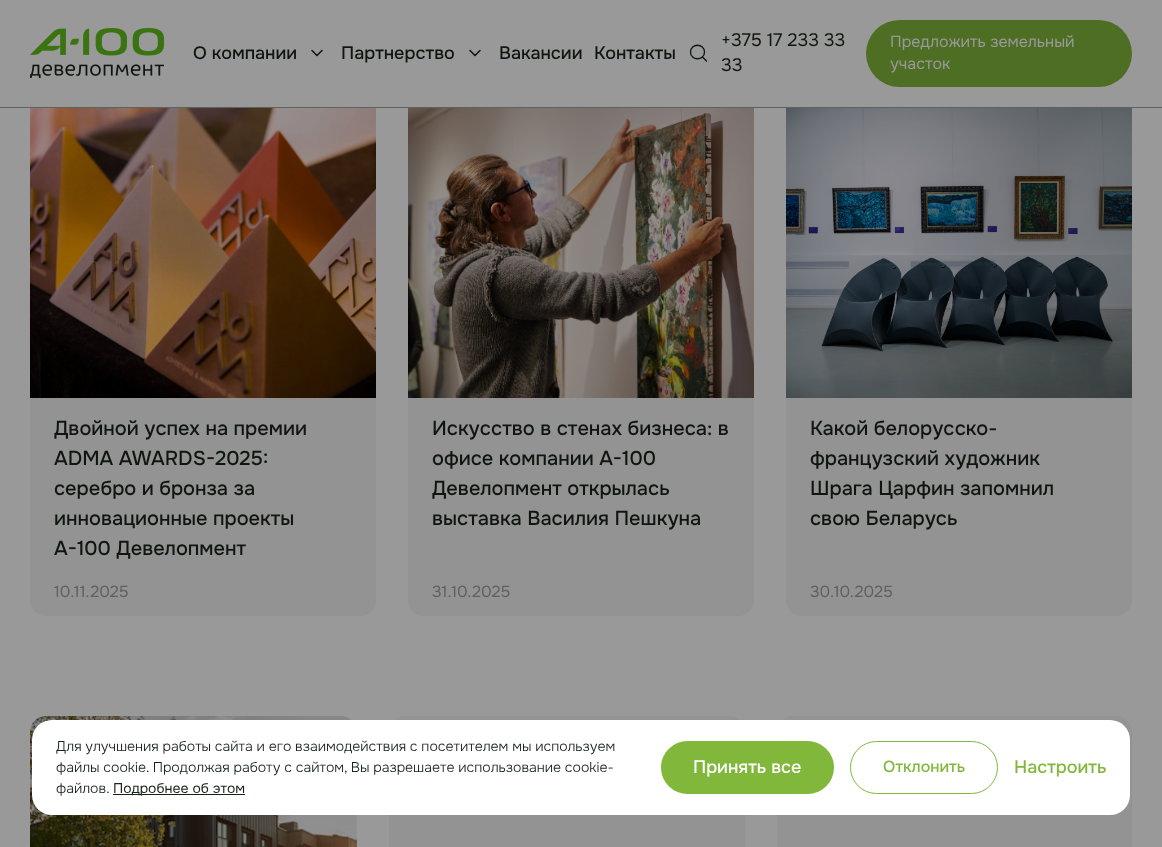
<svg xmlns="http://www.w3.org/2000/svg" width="1162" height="847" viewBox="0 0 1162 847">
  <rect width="100%" height="100%" fill="#999"/>
  <rect x="30" y="92" width="346" height="524" rx="16" fill="#939393"/>
  <rect x="408" y="92" width="346" height="524" rx="16" fill="#939393"/>
  <rect x="786" y="92" width="346" height="524" rx="16" fill="#939393"/>
  <path d="M30 92h1102v15H30z" fill="#999"/>
  <path d="M0 107h1162v1H0z" fill="#5e625f"/>
  <image x="30" y="28" width="135" height="50" href="img/1.png"/>
  <path d="M322 50.5L317 55.5L312 50.5" fill="none" stroke="#0e160f" stroke-width="1.5" stroke-linecap="round" stroke-linejoin="round"/>
  <path d="M480 50.5L475 55.5L470 50.5" fill="none" stroke="#0e160f" stroke-width="1.5" stroke-linecap="round" stroke-linejoin="round"/>
  <path d="M702.5 57L706.5 61M704.5 52C704.5 61 690.5 61 690.5 52C690.5 43 704.5 43 704.5 52Z" fill="none" stroke="#0e160f" stroke-width="1.3" stroke-linecap="round" stroke-linejoin="round"/>
  <rect x="866" y="20" width="266" height="67" rx="33.5" fill="#4d6e23"/>
  <image x="30" y="108" width="346" height="290" href="img/2.png"/>
  <image x="408" y="108" width="346" height="290" href="img/3.png"/>
  <image x="786" y="108" width="346" height="290" href="img/4.png"/>
  <image x="30" y="716" width="327" height="131" href="img/5.png"/>
  <rect x="389" y="716" width="356" height="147" rx="16" fill="#939393"/>
  <rect x="777" y="716" width="355" height="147" rx="16" fill="#939393"/>
  <rect x="32" y="720" width="1098" height="95" rx="20" fill="#fff"/>
  <path d="M113 794h132v1H113z" fill="#172419"/>
  <rect x="661" y="741" width="173" height="53" rx="26.5" fill="#81b83b"/>
  <rect x="850.5" y="741.5" width="147" height="52" rx="26" fill="none" stroke="#81b83b"/>
  <g font-family="Onest" font-size="18" font-weight="500" fill="#0e160f">
    <text x="193" y="59">О компании</text>
    <text x="341" y="59">Партнерство</text>
    <text x="499" y="59">Вакансии</text>
    <text x="594" y="59">Контакты</text>
  </g>
  <g font-family="Onest" font-size="18" fill="#0e160f">
    <text x="721" y="46">+375 17 233 33</text>
    <text x="721" y="71">33</text>
  </g>
  <g font-family="Onest" font-size="16" fill="#999">
    <text x="890" y="47">Предложить земельный</text>
    <text x="890" y="69">участок</text>
  </g>
  <g font-family="Onest" font-size="20" font-weight="500" fill="#0e160f">
    <text x="54" y="435">Двойной успех на премии</text>
    <text x="54" y="465">ADMA AWARDS-2025:</text>
    <text x="54" y="495">серебро и бронза за</text>
    <text x="54" y="525">инновационные проекты</text>
    <text x="54" y="555">А-100 Девелопмент</text>
  </g>
  <text x="54" y="597" font-family="Onest" font-size="16" fill="#5e625f">10.11.2025</text>
  <g font-family="Onest" font-size="20" font-weight="500" fill="#0e160f">
    <text x="432" y="435">Искусство в стенах бизнеса: в</text>
    <text x="432" y="465">офисе компании А-100</text>
    <text x="432" y="495">Девелопмент открылась</text>
    <text x="432" y="525">выставка Василия Пешкуна</text>
  </g>
  <text x="432" y="597" font-family="Onest" font-size="16" fill="#5e625f">31.10.2025</text>
  <g font-family="Onest" font-size="20" font-weight="500" fill="#0e160f">
    <text x="810" y="435">Какой белорусско-</text>
    <text x="810" y="465">французский художник</text>
    <text x="810" y="495">Шрага Царфин запомнил</text>
    <text x="810" y="525">свою Беларусь</text>
  </g>
  <text x="810" y="597" font-family="Onest" font-size="16" fill="#5e625f">30.10.2025</text>
  <g font-family="Onest" font-size="14" font-weight="300" fill="#172419">
    <text x="56" y="751">Для улучшения работы сайта и его взаимодействия с посетителем мы используем</text>
    <text x="56" y="772">файлы cookie. Продолжая работу с сайтом, Вы разрешаете использование cookie-</text>
    <text x="56" y="793">файлов.</text>
  </g>
  <text x="113" y="793" font-family="Onest" font-size="14" fill="#172419">Подробнее об этом</text>
  <text x="693" y="773" font-family="Onest" font-size="18" font-weight="500" fill="#fff">Принять все</text>
  <text x="883" y="772" font-family="Onest" font-size="16" font-weight="500" fill="#81b83b">Отклонить</text>
  <text x="1014" y="773" font-family="Onest" font-size="18" font-weight="500" fill="#81b83b">Настроить</text>
</svg>
